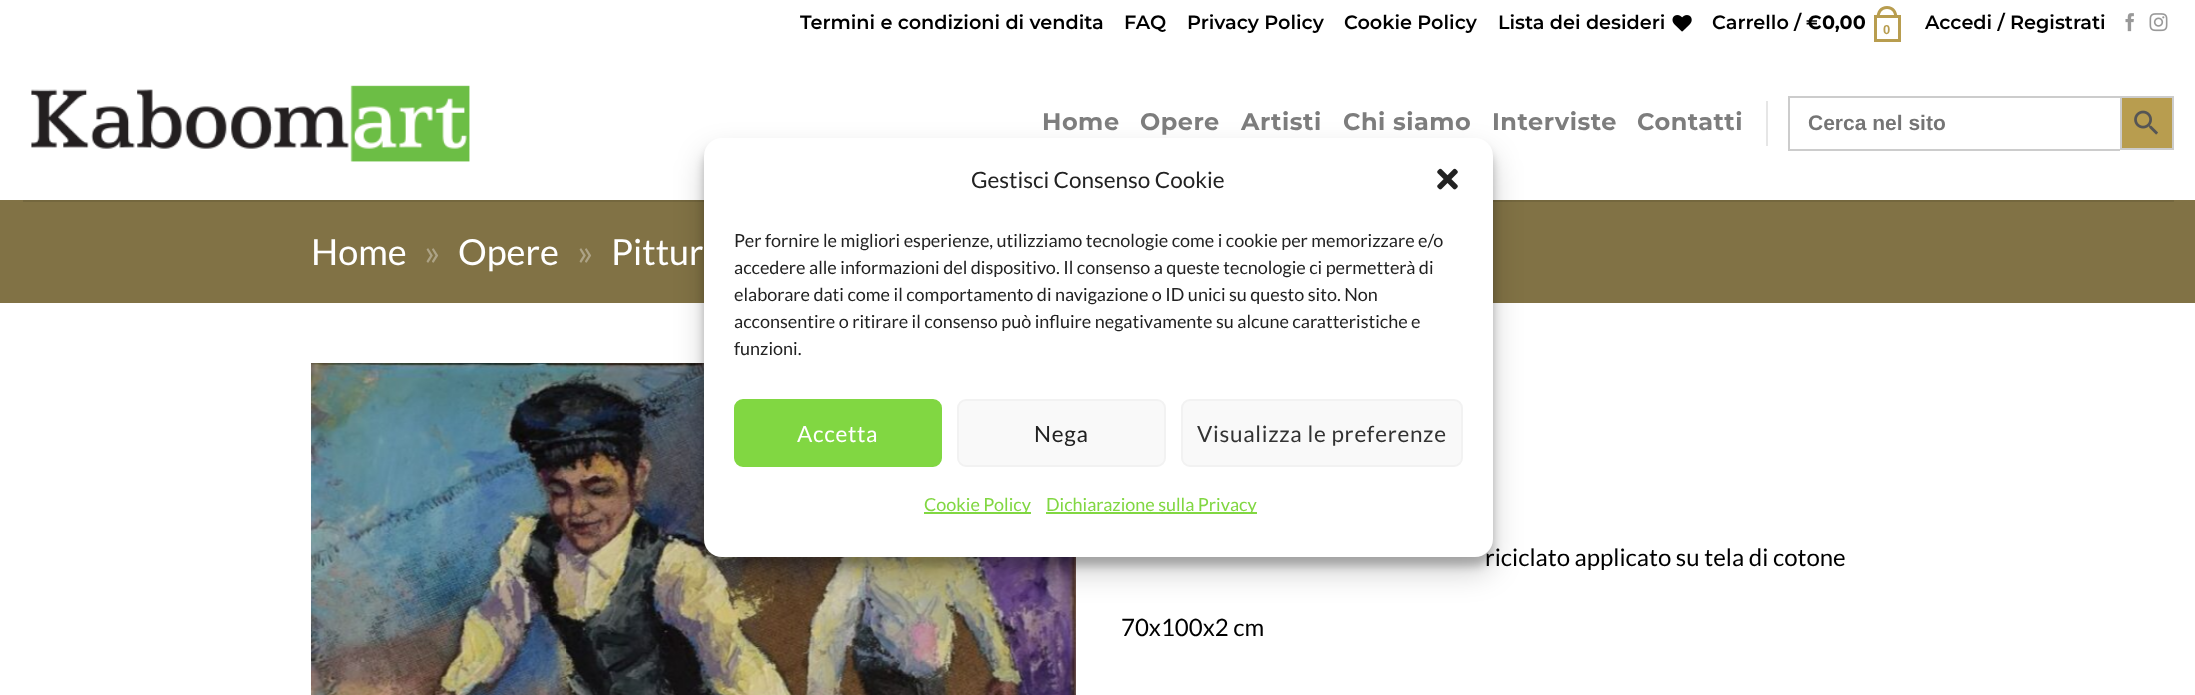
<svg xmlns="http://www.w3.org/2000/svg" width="2195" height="695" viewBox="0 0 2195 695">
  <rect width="100%" height="100%" fill="#fff"/>
  <image x="1672" y="15" width="20" height="17" href="img/1.png"/>
  <path d="M1875.5 16.5h24v24H1875.5z" fill="none" stroke="#b89d4f" stroke-width="3"/>
  <path d="M1887 6C1894 6 1897.5 11.5 1897.5 18H1876.5C1876.5 11.5 1880 6 1887 6ZM1887 9C1892.5 9 1894.5 13.5 1894.5 18H1879.5C1879.5 13.5 1881.5 9 1887 9Z" fill="#b89d4f" fill-rule="evenodd"/>
  <image x="2125" y="13" width="9" height="19" href="img/2.png"/>
  <image x="2149" y="13" width="19" height="19" href="img/3.png"/>
  <image x="31" y="85" width="439" height="77" href="img/4.png"/>
  <path d="M1766 101h2v45H1766z" fill="#e6e6e6"/>
  <path d="M1788 96h332v2H1788z" fill="#ccc"/>
  <path d="M1788 149h332v2H1788z" fill="#ccc"/>
  <path d="M1788 96h2v54H1788z" fill="#ccc"/>
  <path d="M2121 97h52v52H2121z" fill="#b89d4f" stroke="#ccc" stroke-width="2"/>
  <image x="2134" y="110" width="24" height="25" href="img/5.png"/>
  <path d="M0 200h2195v103H0z" fill="#817245"/>
  <path d="M23 200h2151v2H23z" fill="#74673e"/>
  <image x="311" y="363" width="765" height="332" href="img/6.png"/>
  <rect x="704" y="147" width="789" height="419" rx="18" fill="#0000003b" filter="blur(4.5px)"/>
  <rect x="704" y="153" width="789" height="419" rx="18" fill="#00000030" filter="blur(15px)"/>
  <g font-family="Montserrat" font-size="19.25" font-weight="600" fill="#000">
    <text x="800" y="29">Termini e condizioni di vendita</text>
    <text x="1124" y="29">FAQ</text>
    <text x="1187" y="29">Privacy Policy</text>
    <text x="1344" y="29">Cookie Policy</text>
    <text x="1498" y="29">Lista dei desideri</text>
    <text x="1712" y="29">Carrello /</text>
  </g>
  <g font-family="Montserrat" font-size="19.25" font-weight="bold" fill="#000">
    <text x="1806" y="29">€</text>
    <text x="1822" y="29">0,00</text>
  </g>
  <text x="1883" y="34" font-family="Liberation Sans" font-size="13" font-weight="bold" fill="#b89d4f">0</text>
  <text x="1925" y="29" font-family="Montserrat" font-size="19.25" font-weight="600" fill="#000">Accedi / Registrati</text>
  <g font-family="Montserrat" font-size="24" font-weight="bold" letter-spacing="0.5" fill="#7d7d7d">
    <text x="1042" y="130">Home</text>
    <text x="1140" y="130">Opere</text>
    <text x="1241" y="130">Artisti</text>
    <text x="1343" y="130">Chi siamo</text>
    <text x="1492" y="130">Interviste</text>
    <text x="1637" y="130">Contatti</text>
  </g>
  <text x="1808" y="130" font-family="Liberation Sans" font-size="21" font-weight="bold" fill="#757575">Cerca nel sito</text>
  <text x="311" y="265" font-family="Lato" font-size="36" fill="#fff">Home</text>
  <text x="424" y="265" font-family="Lato" font-size="36" fill="#ada386">»</text>
  <text x="458" y="265" font-family="Lato" font-size="36" fill="#fff">Opere</text>
  <text x="577" y="265" font-family="Lato" font-size="36" fill="#ada386">»</text>
  <text x="611" y="265" font-family="Lato" font-size="36" fill="#fff">Pittur</text>
  <g font-family="Lato" font-size="24" fill="#000">
    <text x="1485" y="566">riciclato applicato su tela di cotone</text>
    <text x="1121" y="636">70x100x2 cm</text>
  </g>
  <rect x="704" y="138" width="789" height="419" rx="18" fill="#fff"/>
  <text x="971" y="188" font-family="Lato" font-size="22.5" fill="#222">Gestisci Consenso Cookie</text>
  <image x="1437" y="168" width="21" height="22" href="img/7.png"/>
  <g font-family="Lato" font-size="18" fill="#222">
    <text x="734" y="247">Per fornire le migliori esperienze, utilizziamo tecnologie come i cookie per memorizzare e/o</text>
    <text x="734" y="274">accedere alle informazioni del dispositivo. Il consenso a queste tecnologie ci permetterà di</text>
    <text x="734" y="301">elaborare dati come il comportamento di navigazione o ID unici su questo sito. Non</text>
    <text x="734" y="328">acconsentire o ritirare il consenso può influire negativamente su alcune caratteristiche e</text>
    <text x="734" y="355">funzioni.</text>
  </g>
  <rect x="735" y="400" width="206" height="66" rx="8" fill="#81d742" stroke="#81d742" stroke-width="2"/>
  <text x="797" y="442" font-family="Lato" font-size="22.5" letter-spacing="0.7" fill="#fff">Accetta</text>
  <rect x="958" y="400" width="207" height="66" rx="8" fill="#f9f9f9" stroke="#f2f2f2" stroke-width="2"/>
  <text x="1034" y="442" font-family="Lato" font-size="22.5" letter-spacing="0.7" fill="#222">Nega</text>
  <rect x="1182" y="400" width="280" height="66" rx="8" fill="#f9f9f9" stroke="#f2f2f2" stroke-width="2"/>
  <text x="1197" y="442" font-family="Lato" font-size="22.5" letter-spacing="0.7" fill="#333">Visualizza le preferenze</text>
  <path d="M924 512h107v2H924z" fill="#81d742"/>
  <text x="924" y="511" font-family="Lato" font-size="18" fill="#81d742">Cookie Policy</text>
  <path d="M1046 512h211v2H1046z" fill="#81d742"/>
  <text x="1046" y="511" font-family="Lato" font-size="18" fill="#81d742">Dichiarazione sulla Privacy</text>
</svg>
